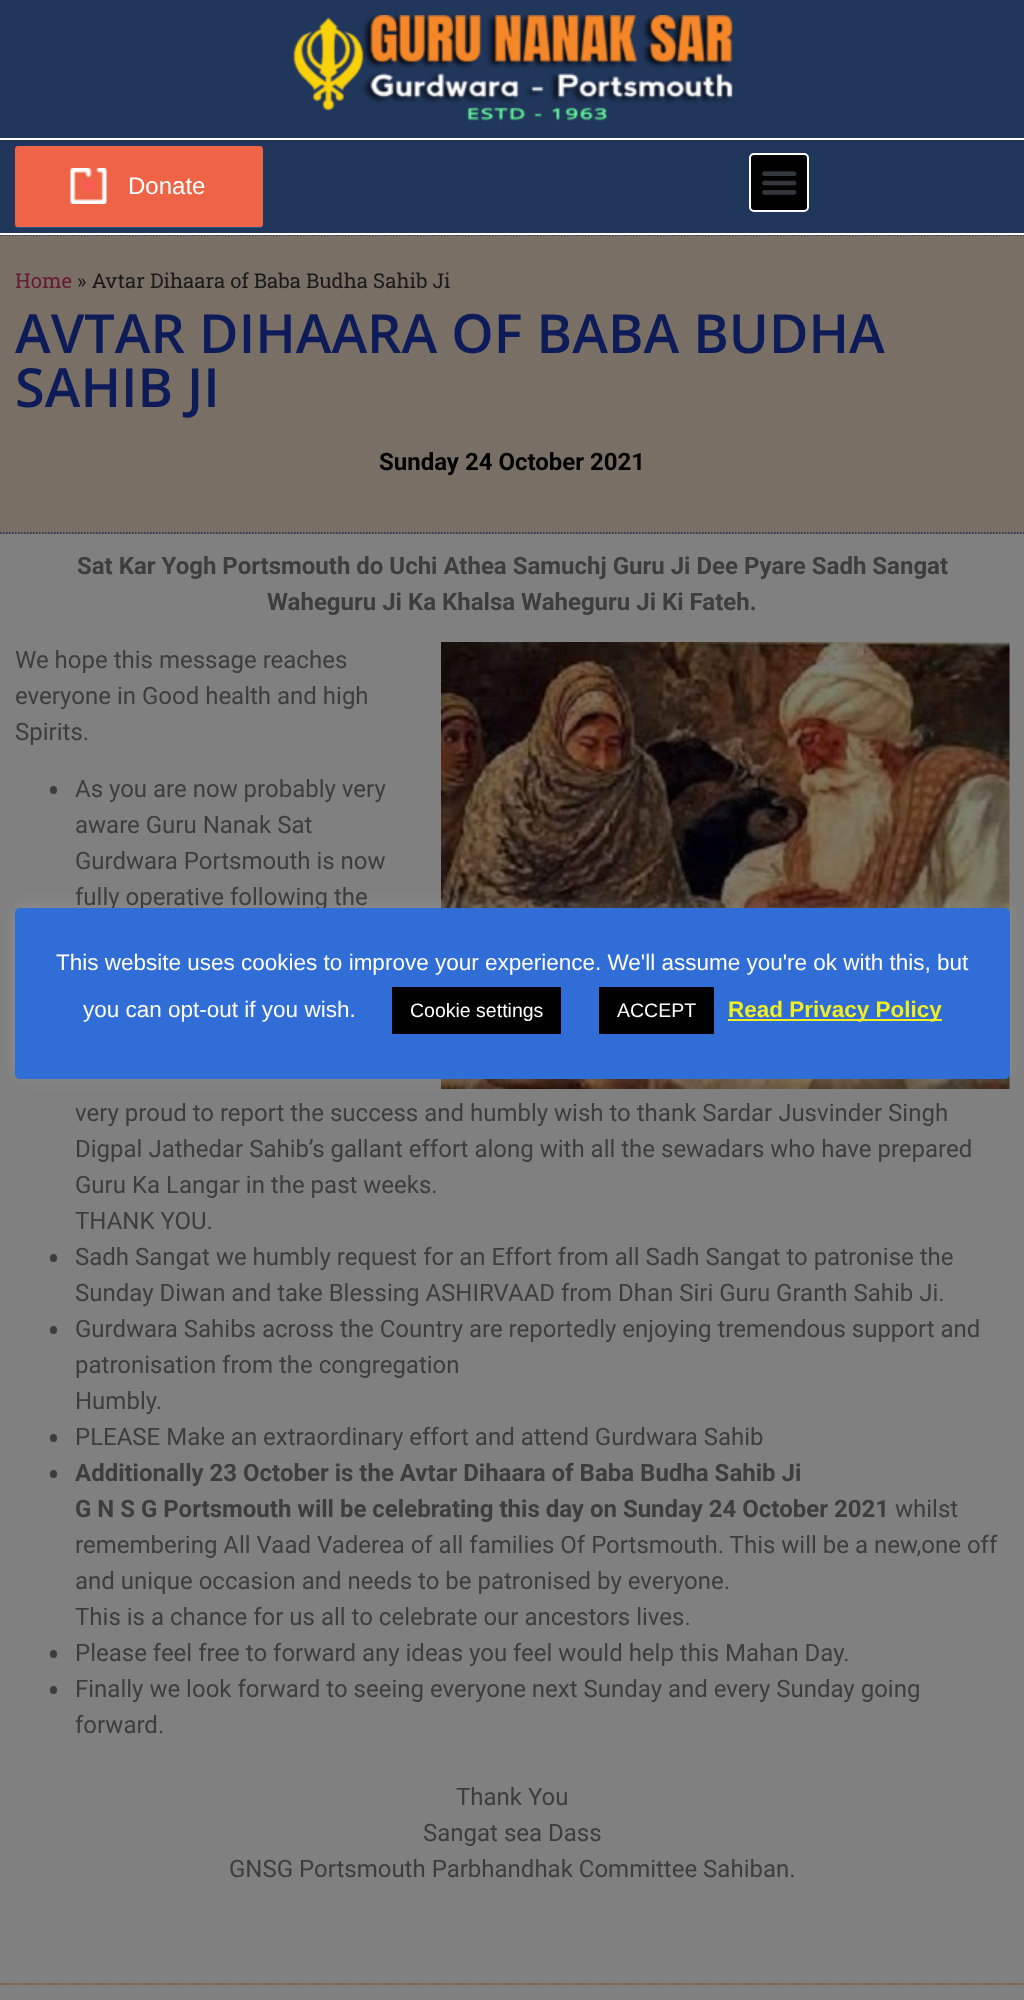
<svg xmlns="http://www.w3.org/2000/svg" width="1024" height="2000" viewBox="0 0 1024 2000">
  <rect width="100%" height="100%" fill="#808080"/>
  <path d="M0 0h1024v138H0z" fill="#21365b"/>
  <image x="292" y="15" width="441" height="106" href="img/1.png"/>
  <path d="M0 140h1024v93H0z" fill="#21365b"/>
  <path d="M0 138h1024v2H0z" fill="#fff"/>
  <path d="M0 235h1024v299H0z" fill="#796f64"/>
  <path d="M0 235H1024.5" fill="none" stroke="#202a59" stroke-width="1.5" stroke-dasharray="1.5 1.5"/>
  <path d="M0 233h1024v2H0z" fill="#fff"/>
  <path d="M15 224V225C15 227 16 228 18 228H260C262 228 263 227 263 225V150L262 148V224C262 225 261 226 260 226H18C16 226 15 225 15 224Z" fill="#1f5a89"/>
  <rect x="15" y="146" width="248" height="81" rx="3" fill="#ef6446"/>
  <image x="70" y="168" width="37" height="36" href="img/2.png"/>
  <rect x="750" y="154" width="58" height="57" rx="4" fill="#000" stroke="#fff" stroke-width="2"/>
  <image x="762" y="171" width="35" height="24" href="img/3.png"/>
  <path d="M0 533H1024.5" fill="none" stroke="#202a59" stroke-width="1.5" stroke-dasharray="1.5 1.5"/>
  <image x="441" y="642" width="569" height="447" href="img/4.png"/>
  <rect x="50" y="786" width="7" height="8" rx="3.5" fill="#3d3d3d"/>
  <rect x="50" y="1254" width="7" height="8" rx="3.5" fill="#3d3d3d"/>
  <rect x="50" y="1326" width="7" height="8" rx="3.5" fill="#3d3d3d"/>
  <rect x="50" y="1434" width="7" height="8" rx="3.5" fill="#3d3d3d"/>
  <rect x="50" y="1470" width="7" height="8" rx="3.5" fill="#3d3d3d"/>
  <rect x="50" y="1650" width="7" height="8" rx="3.5" fill="#3d3d3d"/>
  <rect x="50" y="1686" width="7" height="8" rx="3.5" fill="#3d3d3d"/>
  <rect x="15" y="906" width="995" height="171" rx="5" fill="#acabab4d" filter="blur(7.5px)"/>
  <path d="M0 1984H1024.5" fill="none" stroke="#804201" stroke-width="1.5" stroke-dasharray="1.5 1.5"/>
  <text x="128" y="194" font-family="Liberation Sans" font-size="24" fill="#fff">Donate</text>
  <text x="15" y="288" font-family="Roboto Slab" font-size="20.4" fill="#661a33">Home</text>
  <text x="77" y="288" font-family="Roboto Slab" font-size="20.4" fill="#1a1a1a">» Avtar Dihaara of Baba Budha Sahib Ji</text>
  <g font-family="Open Sans" font-size="54" font-weight="600" fill="#0d1b59">
    <text x="15" y="353">AVTAR DIHAARA OF BABA BUDHA</text>
    <text x="15" y="407">SAHIB JI</text>
  </g>
  <text x="379" y="470" font-family="Roboto" font-size="24" font-weight="bold" fill="#000">Sunday 24 October 2021</text>
  <g font-family="Roboto" font-size="24" font-weight="bold" fill="#3d3d3d">
    <text x="77" y="574">Sat Kar Yogh Portsmouth do Uchi Athea Samuchj Guru Ji Dee Pyare Sadh Sangat</text>
    <text x="267" y="610">Waheguru Ji Ka Khalsa Waheguru Ji Ki Fateh.</text>
  </g>
  <g font-family="Roboto" font-size="24" fill="#3d3d3d">
    <text x="15" y="668">We hope this message reaches</text>
    <text x="15" y="704">everyone in Good health and high</text>
    <text x="15" y="740">Spirits.</text>
    <text x="75" y="797">As you are now probably very</text>
    <text x="75" y="833">aware Guru Nanak Sat</text>
    <text x="75" y="869">Gurdwara Portsmouth is now</text>
    <text x="75" y="905">fully operative following the</text>
    <text x="75" y="1121">very proud to report the success and humbly wish to thank Sardar Jusvinder Singh</text>
    <text x="75" y="1157">Digpal Jathedar Sahib’s gallant effort along with all the sewadars who have prepared</text>
    <text x="75" y="1193">Guru Ka Langar in the past weeks.</text>
    <text x="75" y="1229">THANK YOU.</text>
    <text x="75" y="1265">Sadh Sangat we humbly request for an Effort from all Sadh Sangat to patronise the</text>
    <text x="75" y="1301">Sunday Diwan and take Blessing ASHIRVAAD from Dhan Siri Guru Granth Sahib Ji.</text>
    <text x="75" y="1337">Gurdwara Sahibs across the Country are reportedly enjoying tremendous support and</text>
    <text x="75" y="1373">patronisation from the congregation</text>
    <text x="75" y="1409">Humbly.</text>
    <text x="75" y="1445">PLEASE Make an extraordinary effort and attend Gurdwara Sahib</text>
  </g>
  <g font-family="Roboto" font-size="24" font-weight="bold" fill="#3d3d3d">
    <text x="75" y="1481">Additionally 23 October is the Avtar Dihaara of Baba Budha Sahib Ji</text>
    <text x="75" y="1517">G N S G Portsmouth will be celebrating this day on Sunday 24 October 2021</text>
  </g>
  <g font-family="Roboto" font-size="24" fill="#3d3d3d">
    <text x="895" y="1517">whilst</text>
    <text x="75" y="1553">remembering All Vaad Vaderea of all families Of Portsmouth. This will be a new,one off</text>
    <text x="75" y="1589">and unique occasion and needs to be patronised by everyone.</text>
    <text x="75" y="1625">This is a chance for us all to celebrate our ancestors lives.</text>
    <text x="75" y="1661">Please feel free to forward any ideas you feel would help this Mahan Day.</text>
    <text x="75" y="1697">Finally we look forward to seeing everyone next Sunday and every Sunday going</text>
    <text x="75" y="1733">forward.</text>
    <text x="456" y="1805">Thank You</text>
    <text x="423" y="1841">Sangat sea Dass</text>
    <text x="229" y="1877">GNSG Portsmouth Parbhandhak Committee Sahiban.</text>
  </g>
  <rect x="15" y="908" width="995" height="171" rx="5" fill="#316dd6"/>
  <g font-family="Liberation Sans" font-size="22.5" fill="#fff">
    <text x="56" y="970">This website uses cookies to improve your experience. We'll assume you're ok with this, but</text>
    <text x="83" y="1017">you can opt-out if you wish.</text>
  </g>
  <path d="M392 987h169v47H392z" fill="#000"/>
  <text x="410" y="1017" font-family="Liberation Sans" font-size="19.5" fill="#fff">Cookie settings</text>
  <path d="M599 987h115v47H599z" fill="#000"/>
  <text x="617" y="1017" font-family="Liberation Sans" font-size="19.5" fill="#fff">ACCEPT</text>
  <path d="M728 1019h214v2H728z" fill="#ee2"/>
  <text x="728" y="1017" font-family="Liberation Sans" font-size="22.5" font-weight="bold" fill="#ee2">Read Privacy Policy</text>
</svg>
